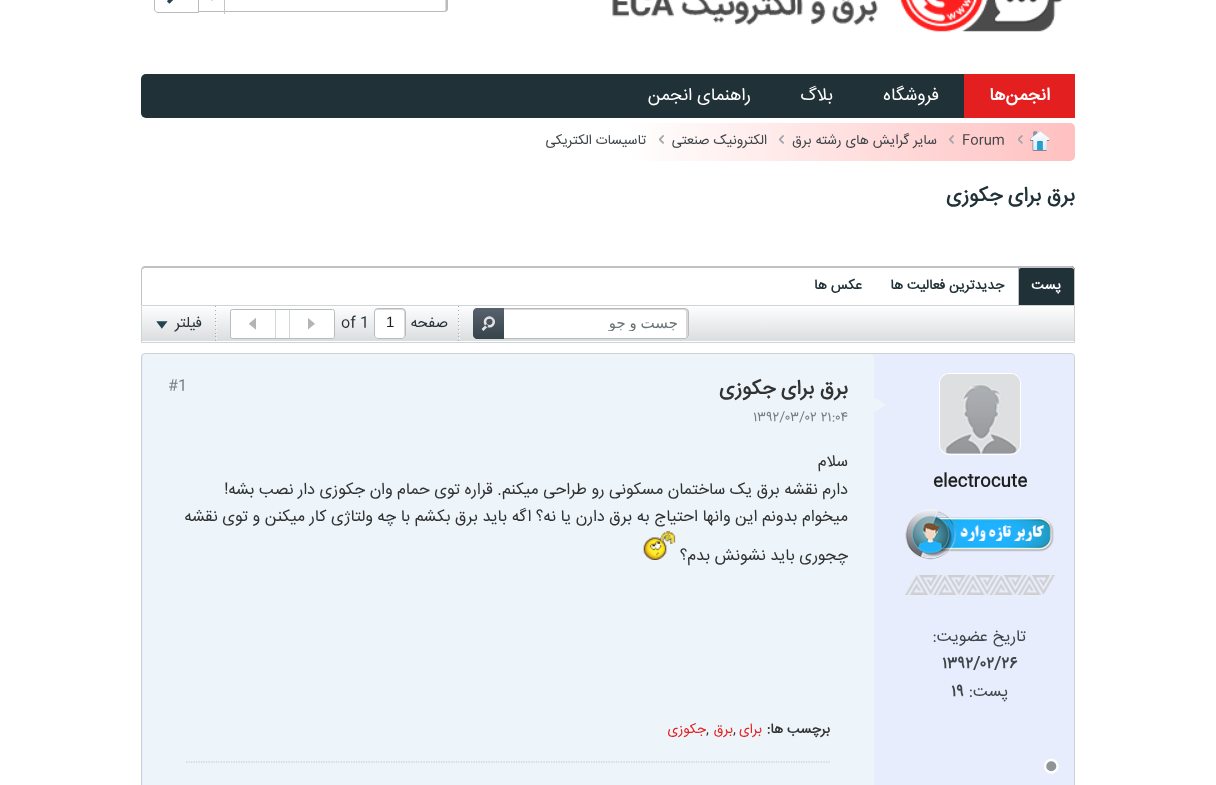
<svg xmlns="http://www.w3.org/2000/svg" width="1216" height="785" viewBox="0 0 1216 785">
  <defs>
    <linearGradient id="g1" gradientUnits="userSpaceOnUse" x1="1075" y1="142" x2="329" y2="142"><stop offset="0" stop-color="#ffc0c0"/><stop offset="0.6" stop-color="#fff"/></linearGradient>
    <linearGradient id="g2" gradientUnits="userSpaceOnUse" x1="608" y1="306" x2="608" y2="341"><stop offset="0" stop-color="#fefeff"/><stop offset="1" stop-color="#daddde"/></linearGradient>
    <linearGradient id="g3" gradientUnits="userSpaceOnUse" x1="488" y1="308" x2="488" y2="339"><stop offset="0" stop-color="#57626e"/><stop offset="1" stop-color="#37434a"/></linearGradient>
    <clipPath id="clip1"><path d="M484 314h194v17H484z"/></clipPath>
  </defs>
  <rect width="100%" height="100%" fill="#fff"/>
  <image x="612" y="0" width="451" height="32" href="img/1.png"/>
  <path d="M199-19V-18H442C447-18 445-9 445-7V11C446 10 446 9 446 8V-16C446-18 445-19 444-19Z" fill="#dadada"/>
  <path d="M199-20H444C446-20 448-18 448-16V9C448 11 446 12 444 12H199ZM199-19H444C445-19 446-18 446-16V9C446 10 445 11 444 11H199Z" fill="#b8bcbf" fill-rule="evenodd"/>
  <path d="M224 0h1v14H224z" fill="#c5c5c5"/>
  <image x="211" y="0" width="2" height="1" href="img/2.png"/>
  <path d="M158-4.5H198.5V12.5H158C156 12.5 154.5 11 154.5 9V-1C154.5-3 156-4.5 158-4.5Z" fill="none" stroke="#b8bcbf"/>
  <image x="167" y="0" width="6" height="4" href="img/3.png"/>
  <rect x="141" y="74" width="934" height="44" rx="5" fill="#203138"/>
  <path d="M964 74h111v44H964z" fill="#e41f1f"/>
  <rect x="329" y="123" width="746" height="38" rx="5" fill="url(#g1)"/>
  <image x="1030" y="131" width="20" height="20" href="img/4.png"/>
  <image x="1018" y="135" width="5" height="9" href="img/5.png"/>
  <image x="949" y="135" width="5" height="9" href="img/6.png"/>
  <image x="779" y="135" width="5" height="9" href="img/7.png"/>
  <image x="659" y="135" width="5" height="9" href="img/8.png"/>
  <path d="M145 266H1071C1073 266 1075 268 1075 270V305H141V270C141 268 143 266 145 266ZM145 268H1071C1073 268 1074 269 1074 270V305H142V270C142 269 144 268 145 268Z" fill="#c1c1c1" fill-rule="evenodd"/>
  <path d="M805 268H1070C1072 268 1074 270 1074 272V305H801V272C801 270 803 268 805 268Z" fill="#fff"/>
  <path d="M1022 266H1071C1073 266 1075 268 1075 270V305H1018V270C1018 268 1020 266 1022 266Z" fill="#203138"/>
  <path d="M1021 266H1071C1073 266 1075 268 1075 270V305H1018V270C1018 268 1019 266 1021 266ZM1021 268H1071C1073 268 1074 269 1074 270V305H1019V270C1019 269 1020 268 1021 268Z" fill="#c1c1c1" fill-rule="evenodd"/>
  <path d="M142 307h932v34H142z" fill="url(#g2)"/>
  <path d="M141.5 305.5h933v37H141.5z" fill="none" stroke="#cfd4d7"/>
  <rect x="473" y="308" width="216" height="31" rx="4" fill="#fff"/>
  <path d="M475 310H684C685 310 686 311 686 312V336V338C690 338 688 329 688 328V320C688 318 690 309 686 309H476L474 310Z" fill="#dadada"/>
  <rect x="473.5" y="308.5" width="215" height="30" rx="3.5" fill="none" stroke="#b8bcbf"/>
  <path d="M477 308H504V339H477C475 339 473 337 473 335V312C473 310 475 308 477 308Z" fill="url(#g3)"/>
  <image x="481" y="316" width="14" height="15" href="img/9.png"/>
  <image x="458" y="306" width="1" height="35" href="img/10.png"/>
  <image x="459" y="311" width="1" height="28" href="img/11.png"/>
  <rect x="374" y="308" width="32" height="31" rx="4" fill="#fff"/>
  <path d="M376 310H401C403 310 404 311 404 312V336L403.5 337.5C404.5 337.5 405 336.5 405 335.5V311.5C405 310 404 309 402.5 309H377.5C376.5 309 376 309.5 375.5 310Z" fill="#dadada"/>
  <rect x="374.5" y="308.5" width="31" height="30" rx="3.5" fill="none" stroke="#b8bcbf"/>
  <rect x="230.5" y="309.5" width="104" height="29" rx="2" fill="#fff" stroke="#b8bcbf"/>
  <path d="M289 310h1v28H289z" fill="#d3d7d9"/>
  <image x="308" y="318" width="7" height="12" href="img/12.png"/>
  <path d="M275 310h1v28H275z" fill="#d3d7d9"/>
  <image x="249" y="318" width="7" height="12" href="img/13.png"/>
  <image x="215" y="306" width="1" height="35" href="img/10.png"/>
  <image x="216" y="311" width="1" height="28" href="img/11.png"/>
  <image x="156" y="321" width="12" height="8" href="img/14.png"/>
  <rect x="141.5" y="353.5" width="933" height="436" rx="3.5" fill="#e8edfd" stroke="#cfd2d4"/>
  <rect x="939.5" y="373.5" width="81" height="81" rx="9.5" fill="none" stroke="#fff"/>
  <image x="940" y="374" width="80" height="80" href="img/15.png"/>
  <image x="905" y="509" width="149" height="51" href="img/16.png"/>
  <image x="905" y="575" width="150" height="20" href="img/17.png"/>
  <image x="1044" y="759" width="15" height="15" href="img/18.png"/>
  <rect x="143" y="354" width="731" height="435" rx="4" fill="#edf5fa"/>
  <path d="M874 412.5V397.5L886 405Z" fill="#edf5fa"/>
  <image x="643" y="531" width="33" height="29" href="img/19.png"/>
  <path d="M186 762H830" fill="none" stroke="#c0c4c6" stroke-width="1.2" stroke-dasharray="1.25 1.25"/>
  <text x="1050" y="100" font-family="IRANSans" font-size="17.5" font-weight="bold" direction="rtl" fill="#fff">انجمن‌ها</text>
  <g font-family="IRANSans" font-size="17.5" direction="rtl" fill="#fff">
    <text x="939" y="100">فروشگاه</text>
    <text x="833" y="100">بلاگ</text>
    <text x="751" y="100">راهنمای انجمن</text>
  </g>
  <text x="962" y="144" font-family="IRANSans" font-size="13.75" fill="#3f4548">Forum</text>
  <g font-family="IRANSans" font-size="13.75" direction="rtl" fill="#3f4548">
    <text x="937" y="144">سایر گرایش های رشته برق</text>
    <text x="767" y="144">الکترونیک صنعتی</text>
    <text x="646" y="144">تاسیسات الکتریکی</text>
  </g>
  <text x="1075" y="201" font-family="IRANSans" font-size="20" font-weight="bold" direction="rtl" fill="#203138">برق برای جکوزی</text>
  <text x="1061" y="289" font-family="IRANSans" font-size="13.75" font-weight="bold" direction="rtl" fill="#fff">پست</text>
  <g font-family="IRANSans" font-size="13.75" font-weight="bold" direction="rtl" fill="#203138">
    <text x="1004" y="289">جدیدترین فعالیت ها</text>
    <text x="862" y="289">عکس ها</text>
  </g>
  <g clip-path="url(#clip1)">
    <text x="678" y="328" word-spacing="-1" font-family="DejaVu Sans" font-size="15" direction="rtl" fill="#697377">جست و جو</text>
  </g>
  <text x="448" y="327" font-family="IRANSans" font-size="15" direction="rtl" fill="#273236">صفحه</text>
  <text x="386" y="327" font-family="Liberation Sans" font-size="15" fill="#1f1f1f">1</text>
  <text x="341" y="327" font-family="IRANSans" font-size="15" fill="#273236">of 1</text>
  <text x="202" y="327" font-family="IRANSans" font-size="15" direction="rtl" fill="#273236">فیلتر</text>
  <text x="933" y="486" font-family="IRANSans" font-size="17.5" font-weight="bold" fill="#1f1f1f">electrocute</text>
  <text x="1026" y="641" font-family="IRANSans" font-size="16.25" direction="rtl" fill="#3f4548">تاریخ عضویت:</text>
  <text x="942" y="668" font-family="IRANSans" font-size="16.25" font-weight="bold" fill="#3f4548">۱۳۹۲/۰۲/۲۶</text>
  <text x="1008" y="696" font-family="IRANSans" font-size="16.25" direction="rtl" fill="#3f4548">پست:</text>
  <text x="951" y="696" font-family="IRANSans" font-size="16.25" font-weight="bold" fill="#3f4548">۱۹</text>
  <text x="848" y="394" font-family="IRANSans" font-size="20" font-weight="bold" direction="rtl" fill="#323232">برق برای جکوزی</text>
  <text x="753" y="421" font-family="IRANSans" font-size="13.75" fill="#777c7f">۱۳۹۲/۰۳/۰۲ ۲۱:۰۴</text>
  <text x="168" y="390" font-family="IRANSans" font-size="15" fill="#777c7f">#1</text>
  <g font-family="IRANSans" font-size="16.25" direction="rtl" fill="#323232">
    <text x="848" y="466">سلام</text>
    <text x="848" y="494">دارم نقشه برق یک ساختمان مسکونی رو طراحی میکنم. قراره توی حمام وان جکوزی دار نصب بشه!</text>
    <text x="848" y="521">میخوام بدونم این وانها احتیاج به برق دارن یا نه؟ اگه باید برق بکشم با چه ولتاژی کار میکنن و توی نقشه</text>
    <text x="848" y="560">چجوری باید نشونش بدم؟</text>
  </g>
  <text x="830" y="733" font-family="IRANSans" font-size="13.75" font-weight="bold" direction="rtl" fill="#323232">برچسب ها:</text>
  <text x="762" y="733" font-family="IRANSans" font-size="13.75" direction="rtl" fill="#e41f1f">برای</text>
  <text x="733" y="733" font-family="IRANSans" font-size="13.75" fill="#323232">,</text>
  <text x="733" y="733" font-family="IRANSans" font-size="13.75" direction="rtl" fill="#e41f1f">برق</text>
  <text x="706" y="733" font-family="IRANSans" font-size="13.75" fill="#323232">,</text>
  <text x="706" y="733" font-family="IRANSans" font-size="13.75" direction="rtl" fill="#e41f1f">جکوزی</text>
</svg>
